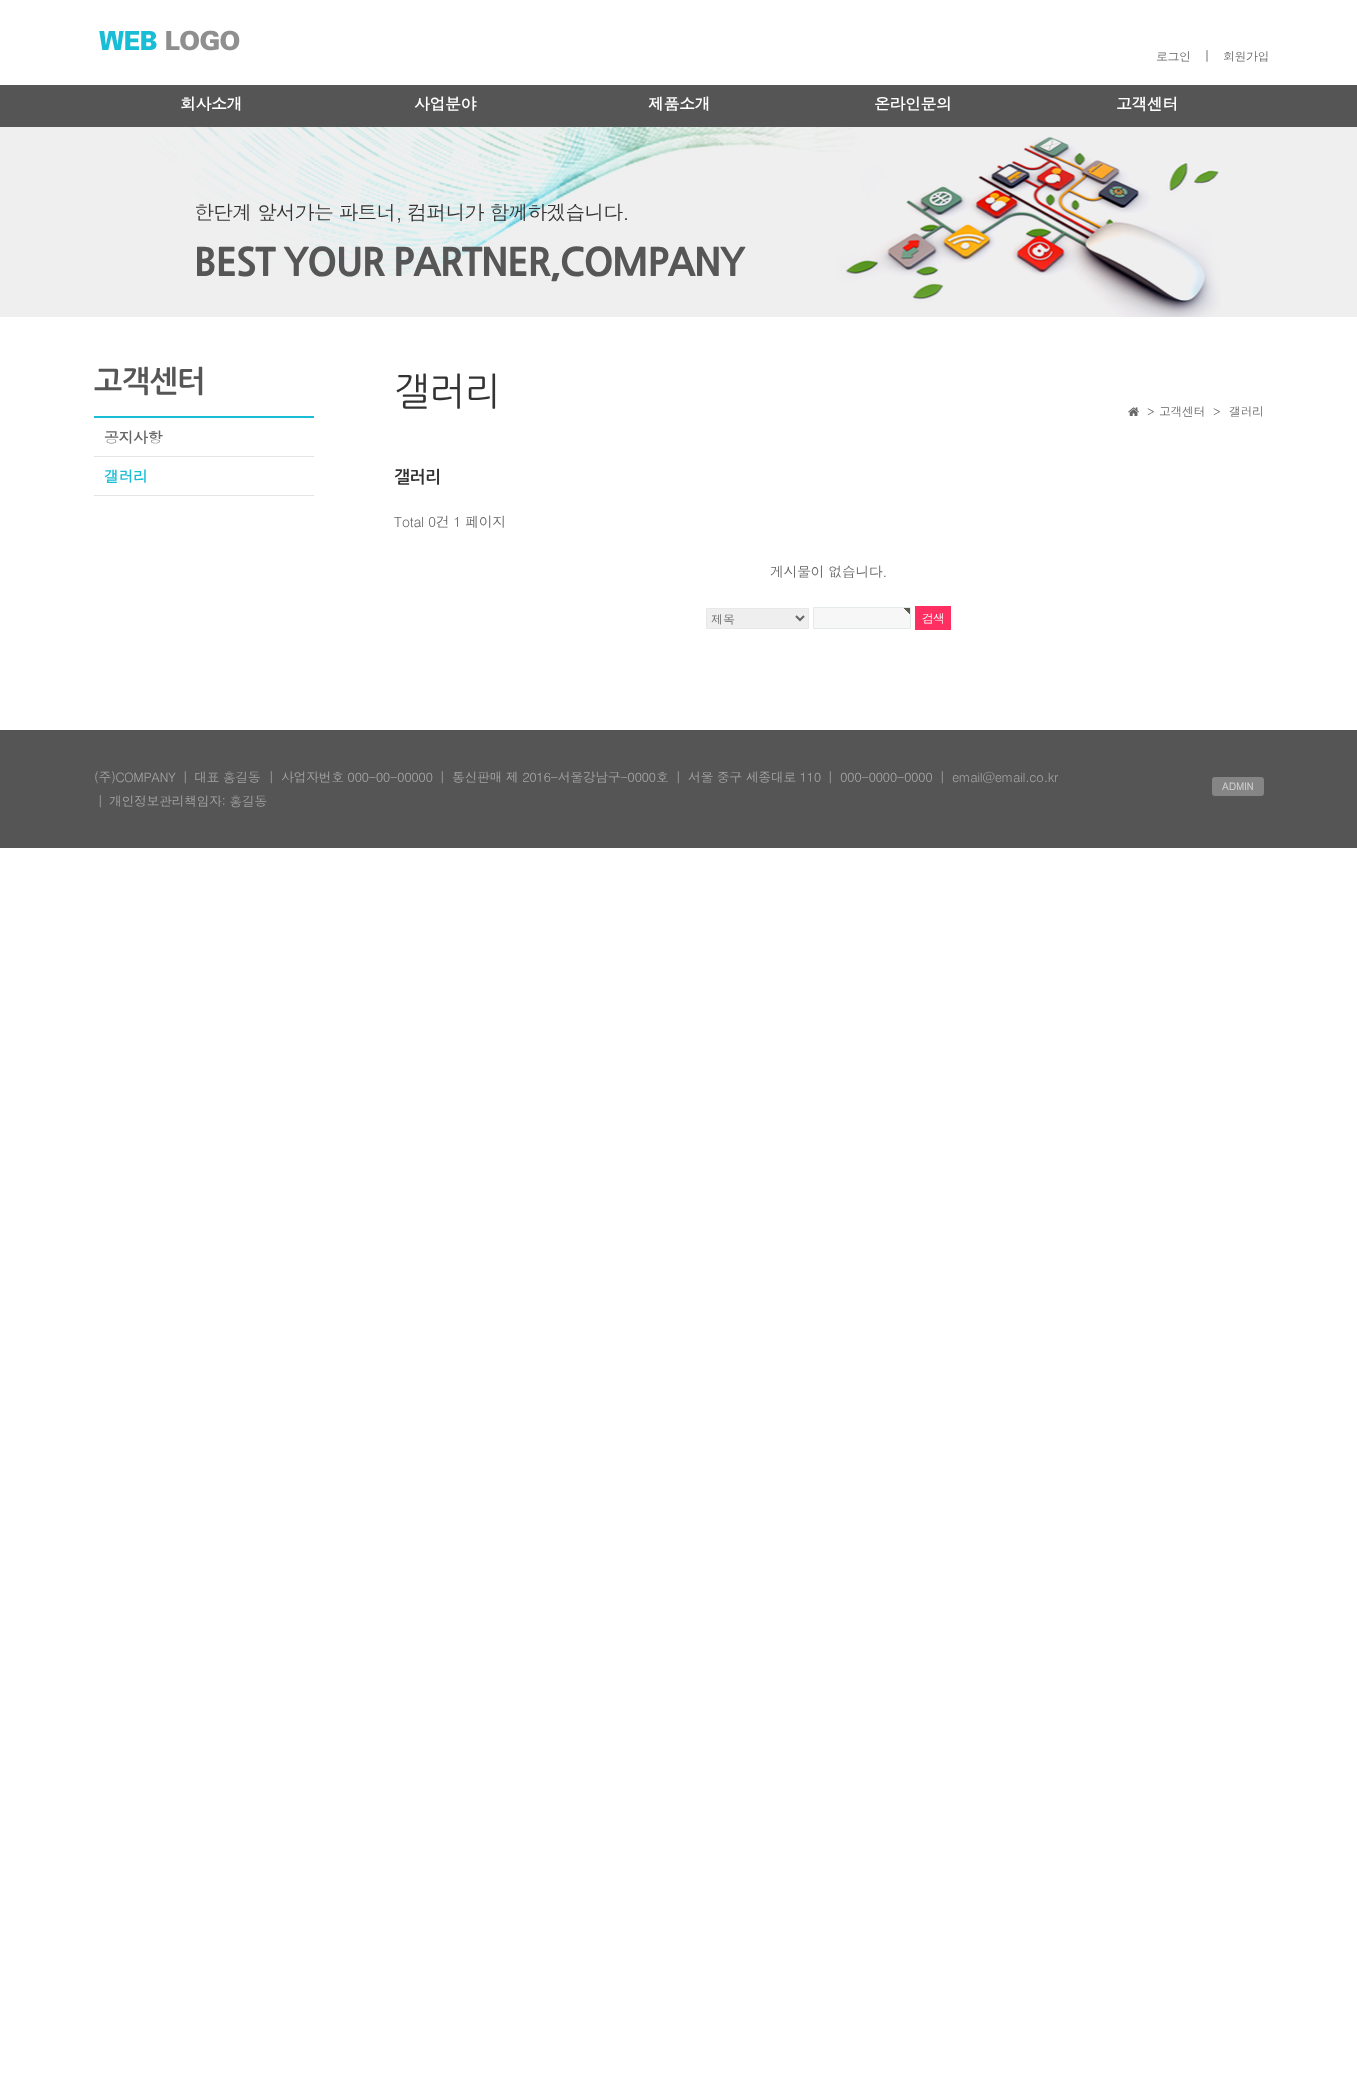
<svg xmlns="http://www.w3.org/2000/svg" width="1357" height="2091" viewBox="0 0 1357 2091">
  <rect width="100%" height="100%" fill="#fff"/>
  <image x="99" y="30" width="141" height="21" href="img/1.png"/>
  <path d="M0 85h1357v42H0z" fill="#555"/>
  <image x="0" y="127" width="1357" height="190" href="img/2.png"/>
  <path d="M94 416h220v2H94z" fill="#19bdd6"/>
  <path d="M94 456h220v1H94z" fill="#e5e5e5"/>
  <path d="M94 495h220v1H94z" fill="#e5e5e5"/>
  <image x="1128" y="407" width="11" height="9" href="img/3.png"/>
  <path d="M706.5 608.5h102v20H706.5z" fill="#efefef" stroke="#e8e8e8"/>
  <path d="M796 616L800 620L804 616" fill="none" stroke="#666" stroke-width="2"/>
  <path d="M814 608h96v20H814z" fill="#f7f7f7"/>
  <image x="904" y="608" width="6" height="6" href="img/4.png"/>
  <path d="M813.5 607.5h97v21H813.5z" fill="none" stroke="#e4eaec"/>
  <path d="M915 606h36v24H915z" fill="#ff3061"/>
  <path d="M0 730h1357v118H0z" fill="#555"/>
  <rect x="1212" y="777" width="52" height="19" rx="3" fill="#858585"/>
  <text x="1156" y="61" font-family="Dotum" font-size="12" letter-spacing="-0.5" fill="#666">로그인</text>
  <text x="1200" y="61" font-family="Dotum" font-size="14" letter-spacing="-0.5" fill="#666">ㅣ</text>
  <text x="1223" y="61" font-family="Dotum" font-size="12" letter-spacing="-0.5" fill="#666">회원가입</text>
  <g font-family="Dotum" font-size="16" font-weight="bold" letter-spacing="-0.5" fill="#fff">
    <text x="180" y="110">회사소개</text>
    <text x="414" y="110">사업분야</text>
    <text x="648" y="110">제품소개</text>
    <text x="874" y="110">온라인문의</text>
    <text x="1116" y="110">고객센터</text>
  </g>
  <text x="194" y="220" font-family="Dotum" font-size="20" letter-spacing="-1" fill="#333">한단계 앞서가는 파트너, 컴퍼니가 함께하겠습니다.</text>
  <text x="194" y="276" font-family="NanumGothic" font-size="38" font-weight="800" letter-spacing="-1.5" fill="#565656">BEST YOUR PARTNER,COMPANY</text>
  <text x="94" y="392" font-family="NanumGothic" font-size="30" font-weight="bold" letter-spacing="-0.5" fill="#565656">고객센터</text>
  <text x="104" y="443" font-family="Dotum" font-size="15" font-weight="bold" letter-spacing="-0.5" fill="#666">공지사항</text>
  <text x="104" y="482" font-family="Dotum" font-size="15" font-weight="bold" letter-spacing="-0.5" fill="#19bdd6">갤러리</text>
  <text x="394" y="405" font-family="NanumGothic" font-size="38" letter-spacing="-0.5" fill="#333">갤러리</text>
  <g font-family="Dotum" font-size="12" letter-spacing="-0.5" fill="#666">
    <text x="1147" y="416">&gt;</text>
    <text x="1159" y="416">고객센터</text>
    <text x="1213" y="416">&gt;</text>
    <text x="1229" y="416">갤러리</text>
  </g>
  <text x="394" y="483" font-family="NanumGothic" font-size="17" font-weight="bold" letter-spacing="-0.5" fill="#333">갤러리</text>
  <g font-family="Dotum" font-size="14" letter-spacing="-0.5" fill="#666">
    <text x="394" y="527">Total 0건 1 페이지</text>
    <text x="770" y="577">게시물이 없습니다.</text>
  </g>
  <text x="711" y="624" font-family="Dotum" font-size="12" fill="#666">제목</text>
  <text x="922" y="623" font-family="Dotum" font-size="12" letter-spacing="-1" fill="#fff">검색</text>
  <g font-family="Dotum" font-size="13" letter-spacing="-0.5" fill="#a5a5a5">
    <text x="94" y="782">(주)COMPANY</text>
    <text x="182" y="782">|</text>
    <text x="194" y="782">대표 홍길동</text>
    <text x="268" y="782">|</text>
    <text x="281" y="782">사업자번호 000-00-00000</text>
    <text x="439" y="782">|</text>
    <text x="452" y="782">통신판매 제 2016-서울강남구-0000호</text>
    <text x="675" y="782">|</text>
    <text x="688" y="782">서울 중구 세종대로 110</text>
    <text x="827" y="782">|</text>
    <text x="840" y="782">000-0000-0000</text>
    <text x="939" y="782">|</text>
    <text x="952" y="782">email@email.co.kr</text>
    <text x="97" y="806">|</text>
    <text x="109" y="806">개인정보관리책임자: 홍길동</text>
  </g>
  <text x="1222" y="790" font-family="Dotum" font-size="10" font-weight="bold" fill="#cecece">ADMIN</text>
</svg>
